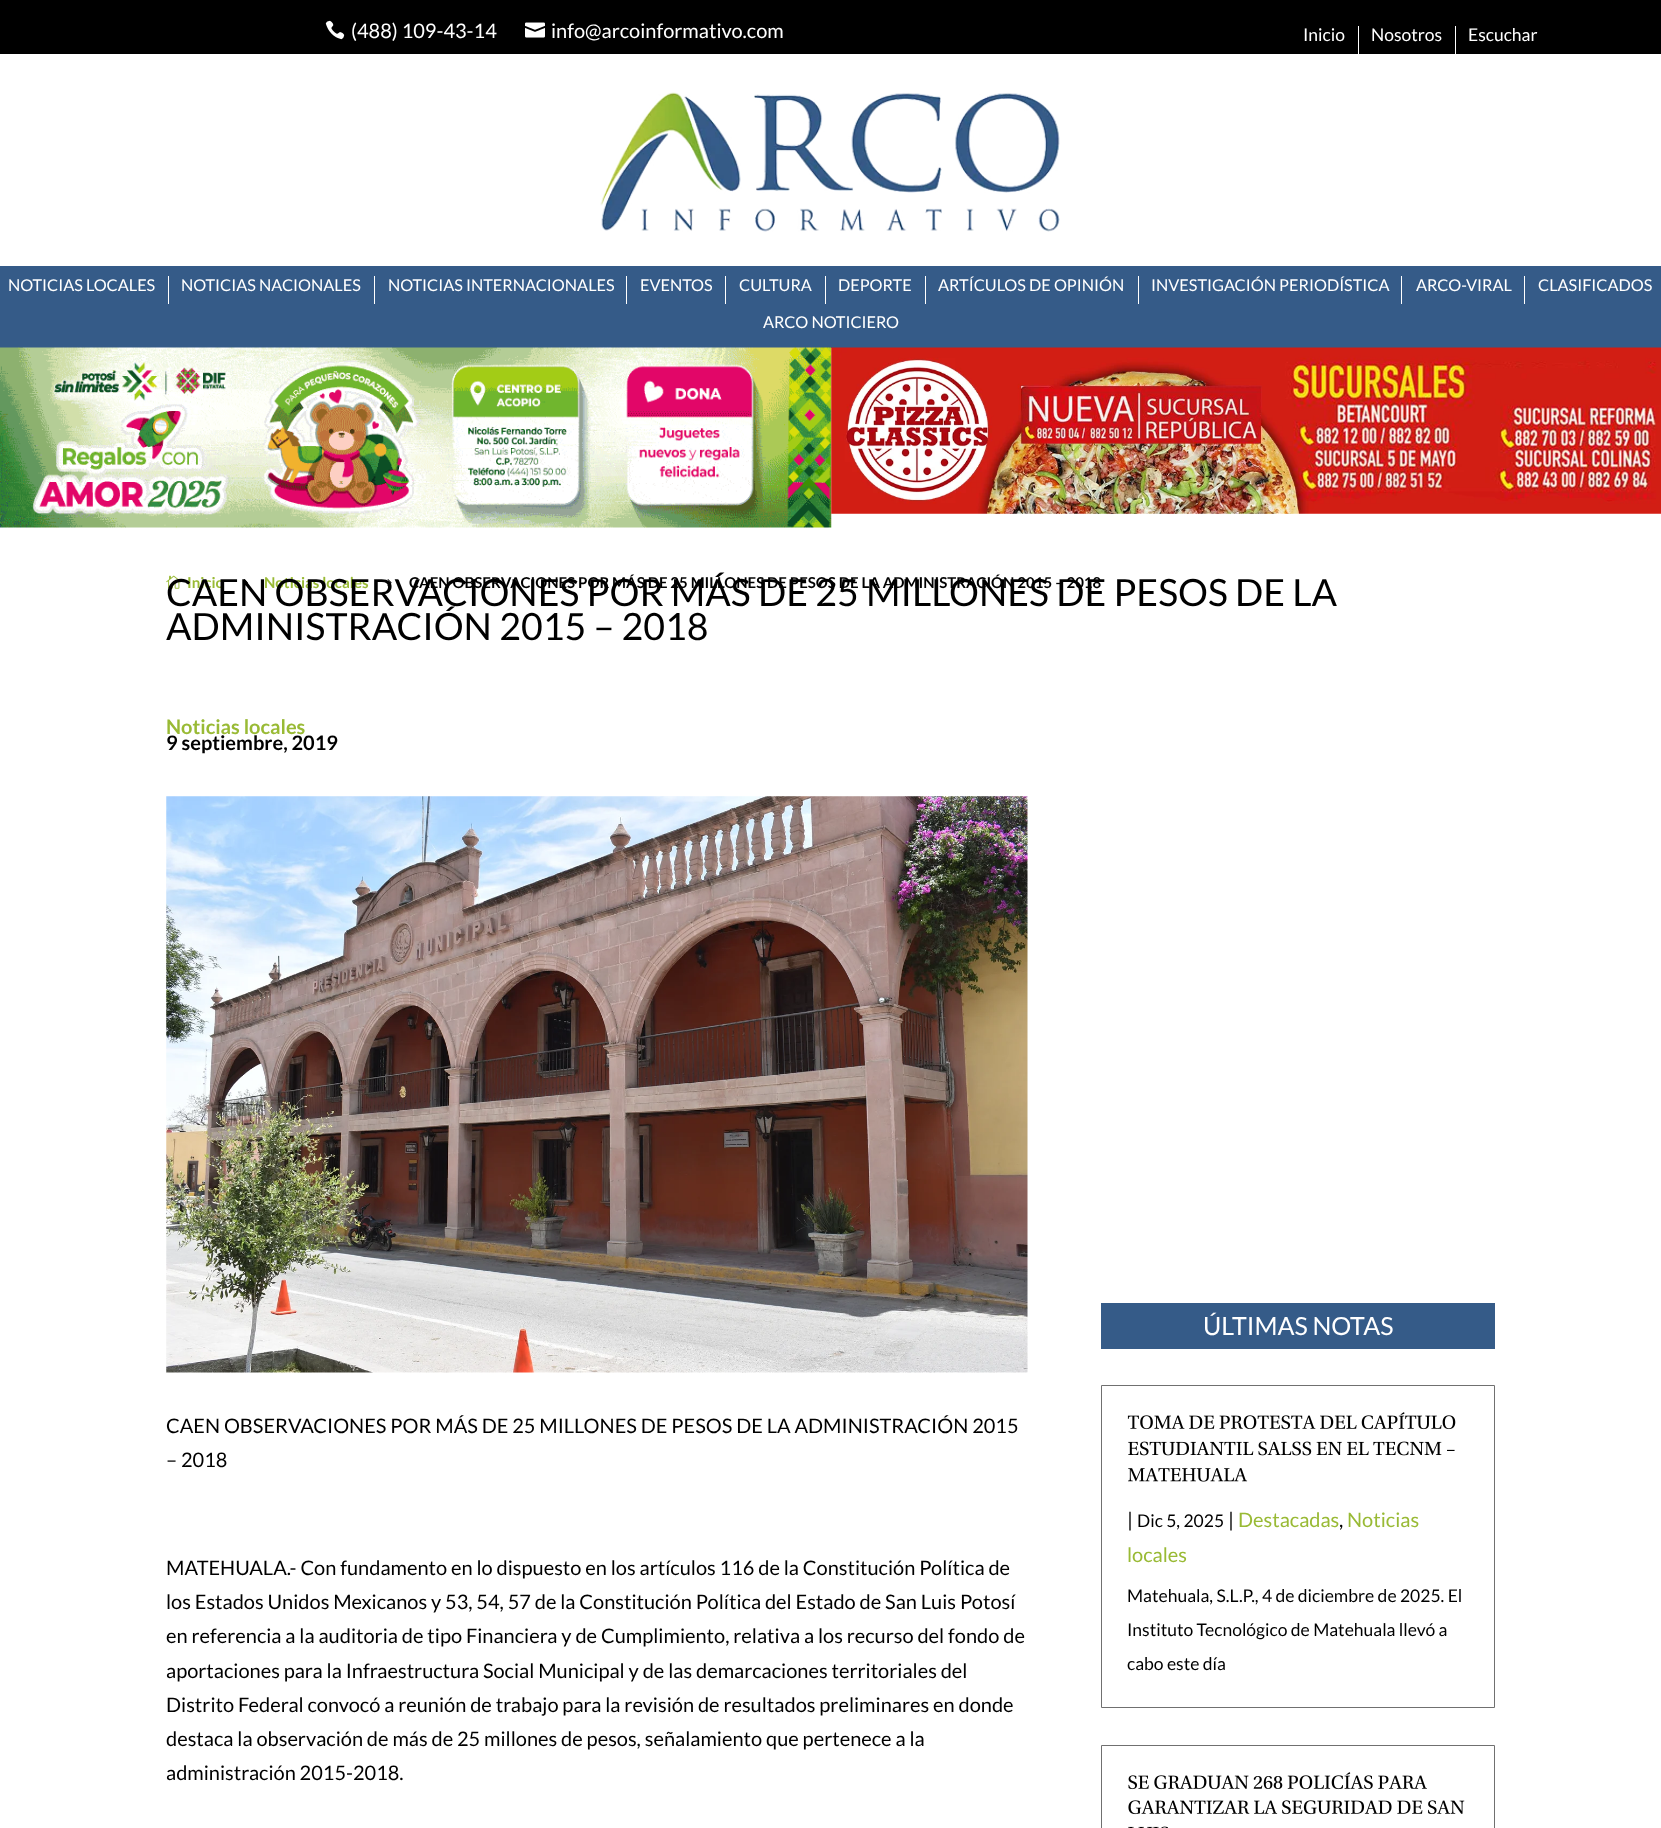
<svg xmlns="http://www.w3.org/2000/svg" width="1661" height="1828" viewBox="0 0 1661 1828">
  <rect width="100%" height="100%" fill="#fff"/>
  <path d="M0 0h1661v54H0z" fill="#000"/>
  <image x="325" y="20" width="20" height="20" href="img/1.png"/>
  <image x="525" y="22" width="20" height="16" href="img/2.png"/>
  <path d="M1358 26h1v28H1358z" fill="#fff"/>
  <path d="M1455 26h1v28H1455z" fill="#fff"/>
  <image x="600" y="92" width="460" height="140" href="img/3.png"/>
  <path d="M0 266h1661v82H0z" fill="#355b88"/>
  <path d="M168 276h1v28H168z" fill="#fff"/>
  <path d="M374 276h1v28H374z" fill="#fff"/>
  <path d="M626 276h1v28H626z" fill="#fff"/>
  <path d="M725 276h1v28H725z" fill="#fff"/>
  <path d="M825 276h1v28H825z" fill="#fff"/>
  <path d="M925 276h1v28H925z" fill="#fff"/>
  <path d="M1138 276h1v28H1138z" fill="#fff"/>
  <path d="M1401 276h1v28H1401z" fill="#fff"/>
  <path d="M1524 276h1v28H1524z" fill="#fff"/>
  <image x="0" y="347" width="832" height="181" href="img/4.png"/>
  <image x="831" y="347" width="830" height="167" href="img/5.png"/>
  <image x="166" y="575" width="16" height="14" href="img/6.png"/>
  <image x="243" y="579" width="5" height="8" href="img/7.png"/>
  <image x="387" y="579" width="5" height="8" href="img/8.png"/>
  <image x="166" y="796" width="862" height="577" href="img/9.png"/>
  <path d="M1101 1303h394v46H1101z" fill="#355b88"/>
  <path d="M1101.5 1385.5h393v322H1101.5z" fill="none" stroke="#707070"/>
  <image x="1127" y="1412" width="329" height="18" href="img/10.png"/>
  <image x="1128" y="1441" width="327" height="15" href="img/11.png"/>
  <image x="1128" y="1468" width="120" height="14" href="img/12.png"/>
  <path d="M1101.5 1745.5h393v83H1101.5z" fill="none" stroke="#707070"/>
  <image x="1128" y="1772" width="299" height="18" href="img/13.png"/>
  <image x="1128" y="1800" width="337" height="15" href="img/14.png"/>
  <image x="1128" y="1826" width="40" height="2" href="img/15.png"/>
  <g font-family="Lato" font-size="20" fill="#fff">
    <text x="351" y="38">(488) 109-43-14</text>
    <text x="551" y="38">info@arcoinformativo.com</text>
  </g>
  <g font-family="Lato" font-size="17.5" fill="#fff">
    <text x="1303" y="41">Inicio</text>
    <text x="1371" y="41">Nosotros</text>
    <text x="1468" y="41">Escuchar</text>
  </g>
  <g font-family="Lato" font-size="16.25" fill="#fff">
    <text x="8" y="291">NOTICIAS LOCALES</text>
    <text x="181" y="291">NOTICIAS NACIONALES</text>
    <text x="388" y="291">NOTICIAS INTERNACIONALES</text>
    <text x="640" y="291">EVENTOS</text>
    <text x="739" y="291">CULTURA</text>
    <text x="838" y="291">DEPORTE</text>
    <text x="938" y="291">ARTÍCULOS DE OPINIÓN</text>
    <text x="1151" y="291">INVESTIGACIÓN PERIODÍSTICA</text>
    <text x="1416" y="291">ARCO-VIRAL</text>
    <text x="1538" y="291">CLASIFICADOS</text>
    <text x="763" y="328">ARCO NOTICIERO</text>
  </g>
  <text x="166" y="640" font-family="Lato" font-size="37.5" fill="#000">ADMINISTRACIÓN 2015 – 2018</text>
  <g font-family="Lato" font-size="15" font-weight="bold" fill="#99ba35">
    <text x="187" y="588">Inicio</text>
    <text x="264" y="588">Noticias locales</text>
  </g>
  <text x="409" y="588" font-family="Lato" font-size="15" font-weight="bold" fill="#000">CAEN OBSERVACIONES POR MÁS DE 25 MILLONES DE PESOS DE LA ADMINISTRACIÓN 2015 – 2018</text>
  <text x="166" y="606" font-family="Lato" font-size="37.5" fill="#000">CAEN OBSERVACIONES POR MÁS DE 25 MILLONES DE PESOS DE LA</text>
  <text x="166" y="734" font-family="Lato" font-size="20" font-weight="bold" fill="#99ba35">Noticias locales</text>
  <text x="166" y="750" font-family="Lato" font-size="20" font-weight="bold" fill="#000">9 septiembre, 2019</text>
  <g font-family="Lato" font-size="20" fill="#000">
    <text x="166" y="1433">CAEN OBSERVACIONES POR MÁS DE 25 MILLONES DE PESOS DE LA ADMINISTRACIÓN 2015</text>
    <text x="166" y="1467">– 2018</text>
    <text x="166" y="1575">MATEHUALA.- Con fundamento en lo dispuesto en los artículos 116 de la Constitución Política de</text>
    <text x="166" y="1609">los Estados Unidos Mexicanos y 53, 54, 57 de la Constitución Política del Estado de San Luis Potosí</text>
    <text x="166" y="1643">en referencia a la auditoria de tipo Financiera y de Cumplimiento, relativa a los recurso del fondo de</text>
    <text x="166" y="1678">aportaciones para la Infraestructura Social Municipal y de las demarcaciones territoriales del</text>
    <text x="166" y="1712">Distrito Federal convocó a reunión de trabajo para la revisión de resultados preliminares en donde</text>
    <text x="166" y="1746">destaca la observación de más de 25 millones de pesos, señalamiento que pertenece a la</text>
    <text x="166" y="1780">administración 2015-2018.</text>
  </g>
  <text x="1203" y="1335" font-family="Lato" font-size="25" fill="#fff">ÚLTIMAS NOTAS</text>
  <text x="1127" y="1527" font-family="Lato" font-size="20" fill="#000">|</text>
  <text x="1137" y="1527" font-family="Lato" font-size="17.5" fill="#000">Dic 5, 2025</text>
  <text x="1228" y="1527" font-family="Lato" font-size="20" fill="#000">|</text>
  <text x="1238" y="1527" font-family="Lato" font-size="20" fill="#99ba35">Destacadas</text>
  <text x="1339" y="1527" font-family="Lato" font-size="20" fill="#000">,</text>
  <g font-family="Lato" font-size="20" fill="#99ba35">
    <text x="1347" y="1527">Noticias</text>
    <text x="1127" y="1562">locales</text>
  </g>
  <g font-family="Lato" font-size="17.5" fill="#000">
    <text x="1127" y="1602">Matehuala, S.L.P., 4 de diciembre de 2025. El</text>
    <text x="1127" y="1636">Instituto Tecnológico de Matehuala llevó a</text>
    <text x="1127" y="1670">cabo este día</text>
  </g>
</svg>
